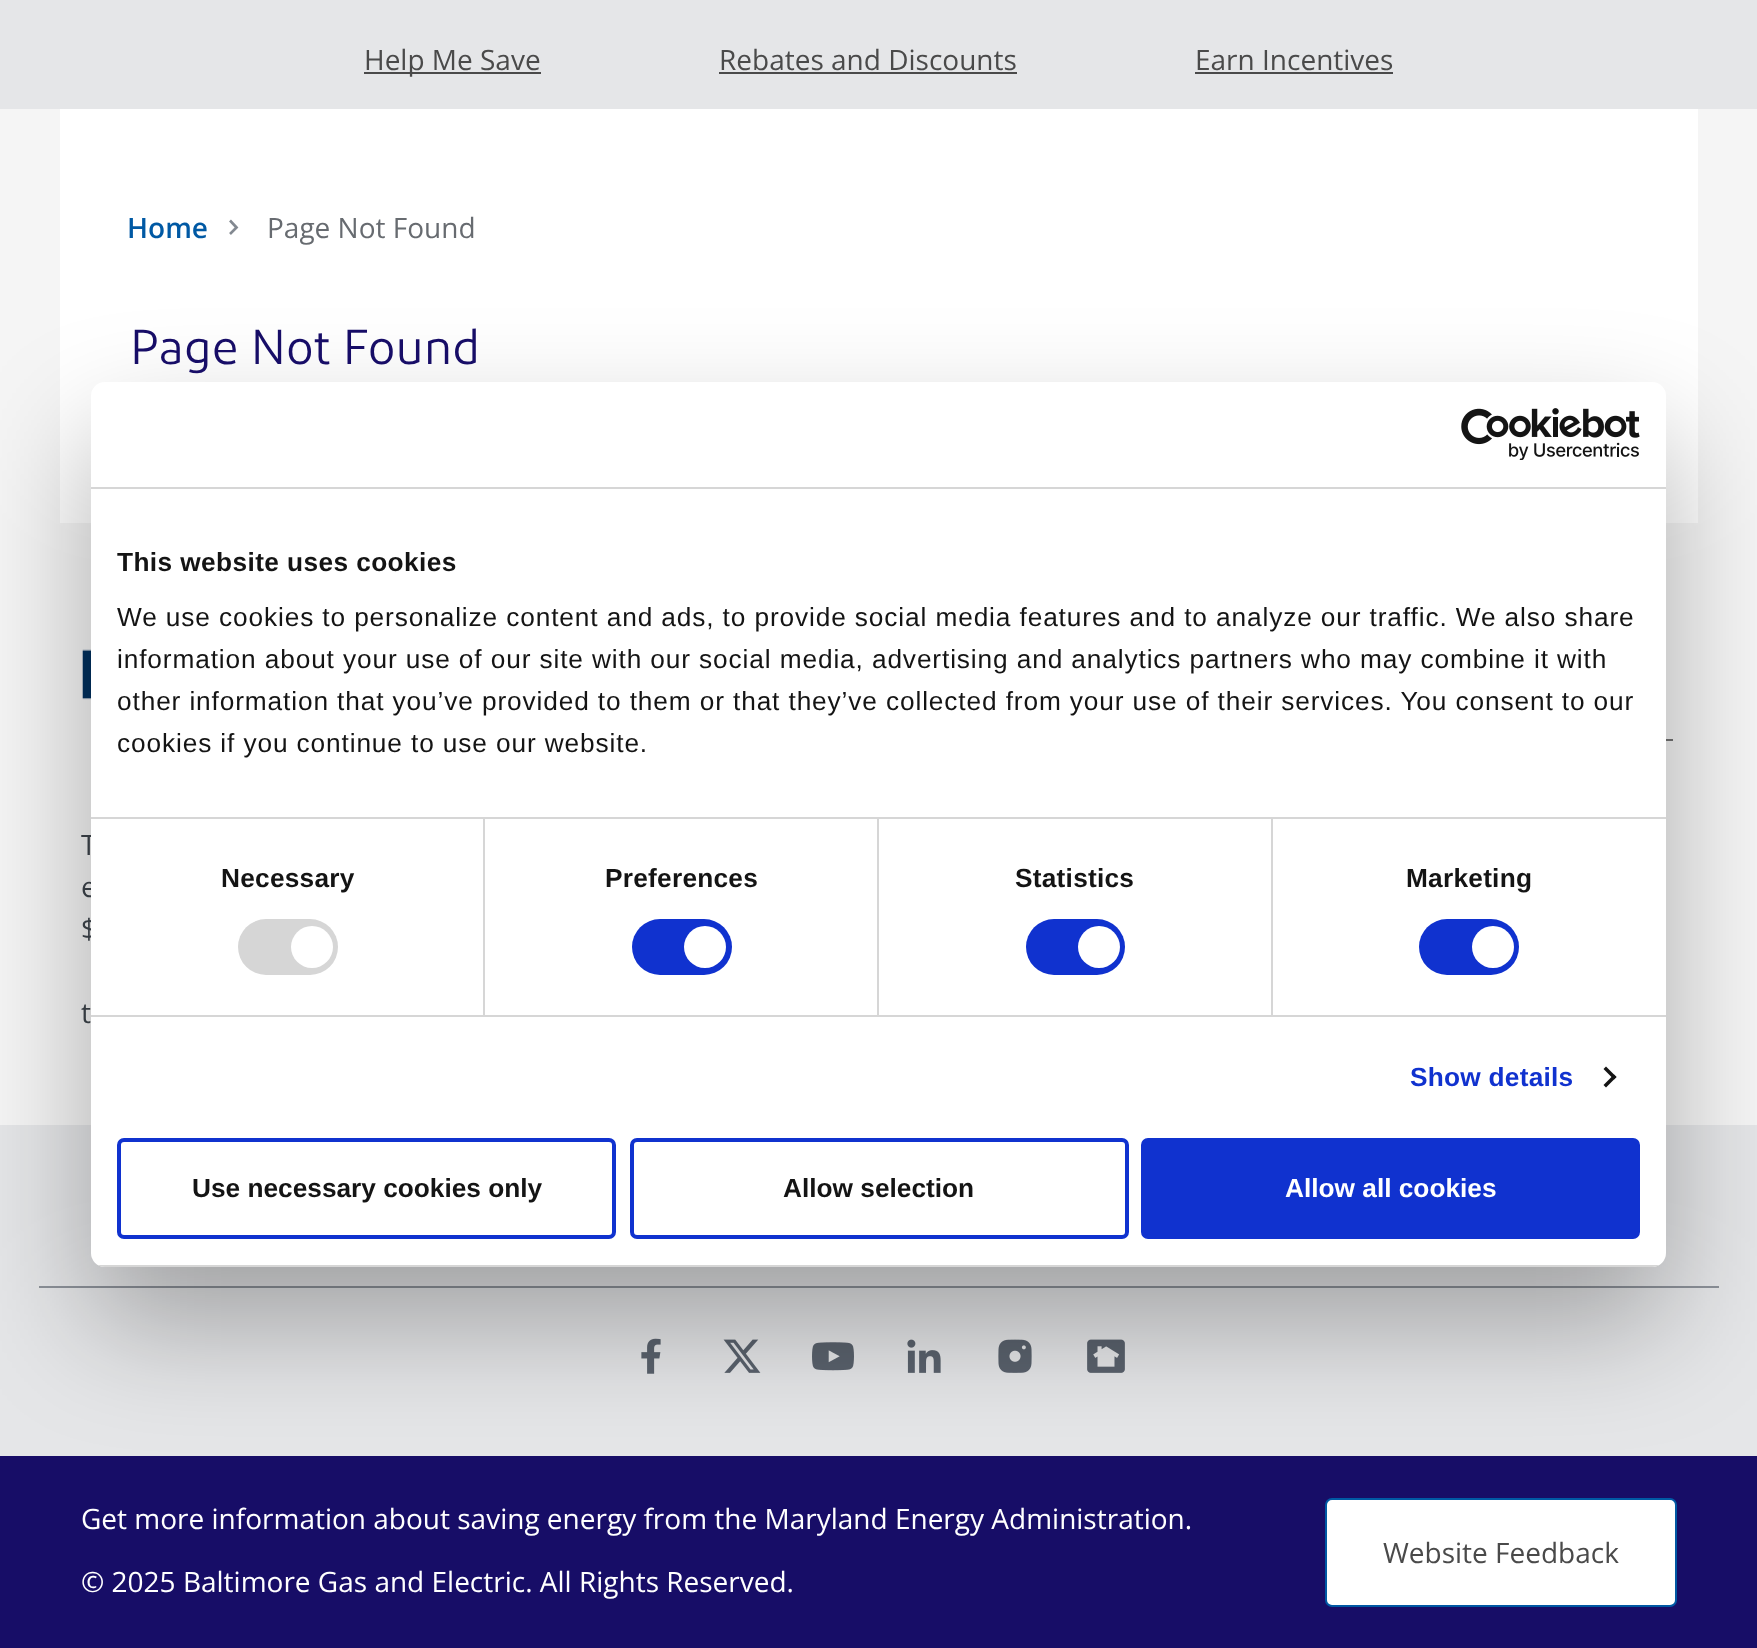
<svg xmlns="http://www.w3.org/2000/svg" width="1757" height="1648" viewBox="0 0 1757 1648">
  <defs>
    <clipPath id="clip1"><rect x="91" y="382" width="1575" height="885" rx="14"/></clipPath>
  </defs>
  <rect width="100%" height="100%" fill="#f5f5f5"/>
  <path d="M0 0h1757v109H0z" fill="#e5e6e8"/>
  <path d="M364 72h177v2H364z" fill="#4a4a4a"/>
  <path d="M719 72h298v2H719z" fill="#4a4a4a"/>
  <path d="M1195 72h198v2H1195z" fill="#4a4a4a"/>
  <path d="M60 109h1638v414H60z" fill="#fff"/>
  <path d="M237.5 226.5L230 234M236.5 227.5L230 220.5" fill="none" stroke="#838991" stroke-width="2.6"/>
  <image x="82" y="649" width="9" height="51" href="img/1.png"/>
  <path d="M1666 739h7v2H1666z" fill="#737373"/>
  <path d="M0 1125h1757v331H0z" fill="#e5e6e8"/>
  <path d="M39 1286h1680v2H39z" fill="#8d929a"/>
  <image x="641" y="1338" width="20" height="36" href="img/2.png"/>
  <image x="723" y="1339" width="38" height="34" href="img/3.png"/>
  <image x="812" y="1342" width="42" height="29" href="img/4.png"/>
  <image x="907" y="1339" width="34" height="34" href="img/5.png"/>
  <image x="998" y="1339" width="34" height="34" href="img/6.png"/>
  <image x="1087" y="1339" width="38" height="34" href="img/7.png"/>
  <path d="M0 1456h1757v192H0z" fill="#170d67"/>
  <rect x="1326" y="1499" width="350" height="107" rx="6" fill="#fff" stroke="#0059a4" stroke-width="2"/>
  <rect x="91" y="438" width="1575" height="885" rx="14" fill="#0000004d" filter="blur(59.5px)"/>
  <g font-family="Open Sans" font-size="28" fill="#4a4a4a">
    <text x="364" y="70">Help Me Save</text>
    <text x="719" y="70">Rebates and Discounts</text>
    <text x="1195" y="70">Earn Incentives</text>
  </g>
  <text x="127" y="238" font-family="Open Sans" font-size="28" font-weight="600" fill="#0059a4">Home</text>
  <text x="267" y="238" font-family="Open Sans" font-size="28" fill="#676b70">Page Not Found</text>
  <text x="130" y="364" font-family="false" font-size="49" fill="#170d67">Page Not Found</text>
  <g font-family="Open Sans" font-size="28" fill="#343a40">
    <text x="81" y="855">T</text>
    <text x="81" y="897">e</text>
    <text x="81" y="939">$</text>
    <text x="81" y="1023">t</text>
  </g>
  <g font-family="Open Sans" font-size="28" fill="#fff">
    <text x="81" y="1529">Get more information about saving energy from the Maryland Energy Administration.</text>
    <text x="81" y="1592">© 2025 Baltimore Gas and Electric. All Rights Reserved.</text>
  </g>
  <text x="1383" y="1563" font-family="Open Sans" font-size="28" fill="#4a4a4a">Website Feedback</text>
  <rect x="91" y="382" width="1575" height="885" rx="14" fill="#fff"/>
  <path d="M91 487h1575v2H91z" fill="#d6d6d6"/>
  <image x="1461" y="408" width="179" height="52" href="img/8.png"/>
  <path d="M91 817h1575v2H91z" fill="#d6d6d6"/>
  <text x="117" y="571" font-family="Liberation Sans" font-size="26.25" font-weight="bold" letter-spacing="0.4" fill="#141414">This website uses cookies</text>
  <g font-family="Liberation Sans" font-size="26.25" letter-spacing="0.88" fill="#141414">
    <text x="117" y="626">We use cookies to personalize content and ads, to provide social media features and to analyze our traffic. We also share</text>
    <text x="117" y="668">information about your use of our site with our social media, advertising and analytics partners who may combine it with</text>
    <text x="117" y="710">other information that you’ve provided to them or that they’ve collected from your use of their services. You consent to our</text>
    <text x="117" y="752">cookies if you continue to use our website.</text>
  </g>
  <path d="M91 1015h1575v2H91z" fill="#d6d6d6"/>
  <path d="M483 819h2v196H483z" fill="#d6d6d6"/>
  <text x="221" y="887" font-family="Liberation Sans" font-size="26.25" font-weight="bold" letter-spacing="0.25" fill="#141414">Necessary</text>
  <rect x="238" y="919" width="100" height="56" rx="28" fill="#d6d6d6"/>
  <circle cx="312" cy="947" r="21" fill="#fff"/>
  <path d="M877 819h2v196H877z" fill="#d6d6d6"/>
  <text x="605" y="887" font-family="Liberation Sans" font-size="26.25" font-weight="bold" letter-spacing="0.25" fill="#141414">Preferences</text>
  <rect x="632" y="919" width="100" height="56" rx="28" fill="#1032cf"/>
  <circle cx="705" cy="947" r="21" fill="#fff"/>
  <path d="M1271 819h2v196H1271z" fill="#d6d6d6"/>
  <text x="1015" y="887" font-family="Liberation Sans" font-size="26.25" font-weight="bold" letter-spacing="0.25" fill="#141414">Statistics</text>
  <rect x="1026" y="919" width="99" height="56" rx="28" fill="#1032cf"/>
  <circle cx="1099" cy="947" r="21" fill="#fff"/>
  <text x="1406" y="887" font-family="Liberation Sans" font-size="26.25" font-weight="bold" letter-spacing="0.25" fill="#141414">Marketing</text>
  <rect x="1419" y="919" width="100" height="56" rx="28" fill="#1032cf"/>
  <circle cx="1493" cy="947" r="21" fill="#fff"/>
  <text x="1410" y="1086" font-family="Liberation Sans" font-size="26.25" font-weight="bold" letter-spacing="0.25" fill="#1032cf">Show details</text>
  <path d="M1606 1066.5L1616.5 1077L1614 1079.5L1603.5 1069Z" fill="#141414"/>
  <path d="M1614 1074.5L1616.5 1077L1606 1087.5L1603.5 1085Z" fill="#141414"/>
  <g clip-path="url(#clip1)">
    <path d="M91 1265h1575v2H91z" fill="#d6d6d6"/>
  </g>
  <rect x="119" y="1140" width="495" height="97" rx="5" fill="none" stroke="#1032cf" stroke-width="4"/>
  <text x="192" y="1197" font-family="Liberation Sans" font-size="26.25" font-weight="bold" fill="#141414">Use necessary cookies only</text>
  <rect x="632" y="1140" width="495" height="97" rx="5" fill="none" stroke="#1032cf" stroke-width="4"/>
  <text x="783" y="1197" font-family="Liberation Sans" font-size="26.25" font-weight="bold" fill="#141414">Allow selection</text>
  <rect x="1143" y="1140" width="495" height="97" rx="5" fill="#1032cf" stroke="#1032cf" stroke-width="4"/>
  <text x="1285" y="1197" font-family="Liberation Sans" font-size="26.25" font-weight="bold" fill="#fff">Allow all cookies</text>
</svg>
